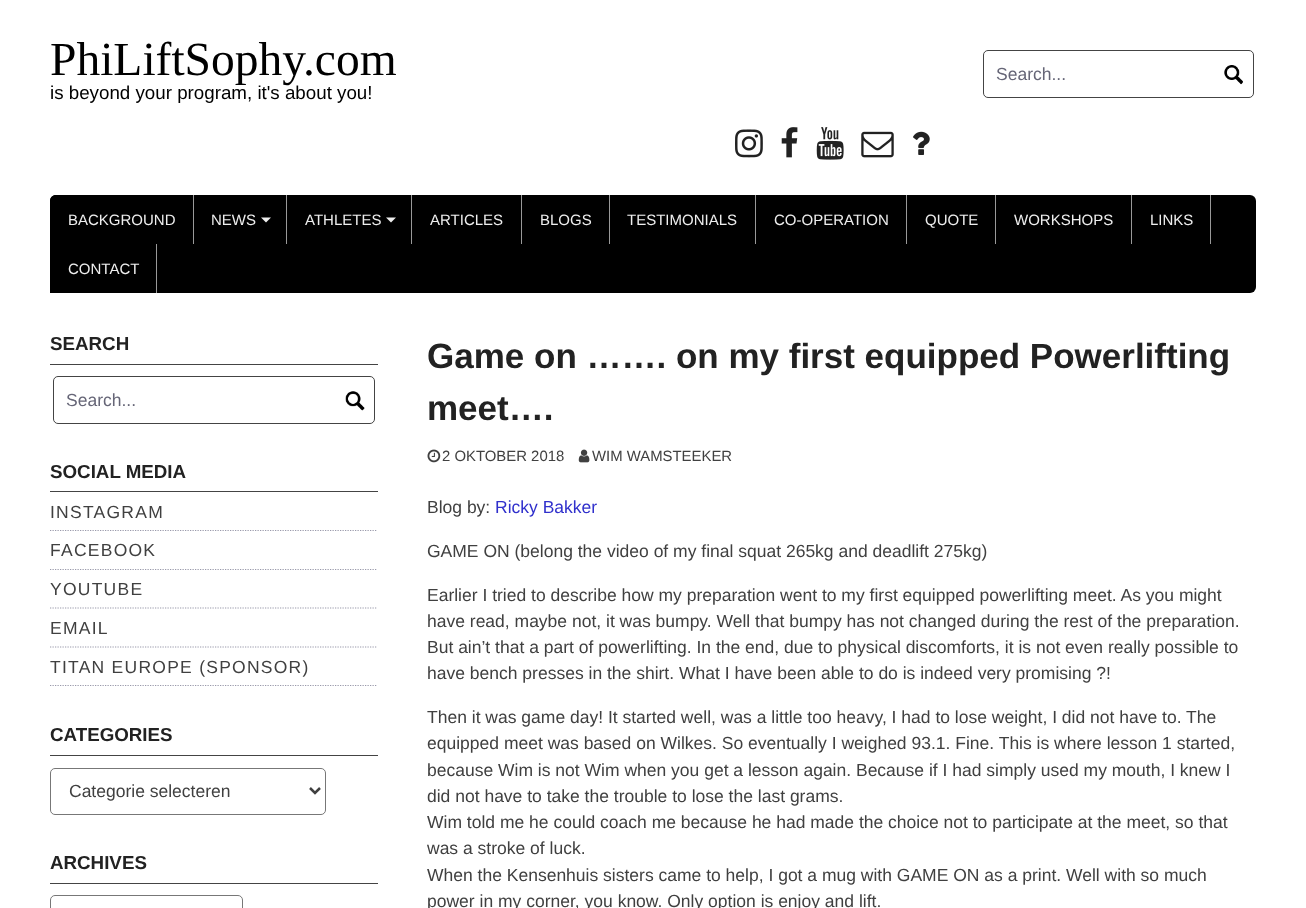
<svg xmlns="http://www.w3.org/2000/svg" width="1306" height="908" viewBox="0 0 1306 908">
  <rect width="100%" height="100%" fill="#fff"/>
  <rect x="983.5" y="50.5" width="270" height="47" rx="4.5" fill="none" stroke="#444"/>
  <image x="1224" y="65" width="19" height="20" href="img/1.png"/>
  <image x="735" y="129" width="28" height="29" href="img/2.png"/>
  <image x="781" y="127" width="17" height="31" href="img/3.png"/>
  <image x="816" y="127" width="28" height="33" href="img/4.png"/>
  <image x="861" y="131" width="33" height="27" href="img/5.png"/>
  <image x="913" y="131" width="17" height="24" href="img/6.png"/>
  <rect x="50" y="195" width="1206" height="98" rx="6" fill="#000"/>
  <path d="M193 195h1v49H193z" fill="#999"/>
  <path d="M56 195H193V244H56C52.5 244 50 241.5 50 238V201C50 197.5 52.5 195 56 195Z" fill="#000"/>
  <path d="M286 195h1v49H286z" fill="#999"/>
  <path d="M261 217.5H271L266 222.5Z" fill="#eee"/>
  <path d="M411 195h1v49H411z" fill="#999"/>
  <path d="M386 217.5H396L391 222.5Z" fill="#eee"/>
  <path d="M521 195h1v49H521z" fill="#999"/>
  <path d="M609 195h1v49H609z" fill="#999"/>
  <path d="M755 195h1v49H755z" fill="#999"/>
  <path d="M906 195h1v49H906z" fill="#999"/>
  <path d="M995 195h1v49H995z" fill="#999"/>
  <path d="M1131 195h1v49H1131z" fill="#999"/>
  <path d="M1210 195h1v49H1210z" fill="#999"/>
  <path d="M156 244h1v49H156z" fill="#999"/>
  <path d="M50 287h6v6H50z" fill="#000"/>
  <path d="M50 364h328v1H50z" fill="#444"/>
  <rect x="53.5" y="376.5" width="321" height="47" rx="4.5" fill="none" stroke="#444"/>
  <image x="345" y="391" width="20" height="20" href="img/7.png"/>
  <path d="M50 491h328v1H50z" fill="#444"/>
  <path d="M50 530.5H377.5" fill="none" stroke="#99a" stroke-width="1.2" stroke-dasharray="1.25 1.25"/>
  <path d="M50 569.5H377.5" fill="none" stroke="#99a" stroke-width="1.2" stroke-dasharray="1.25 1.25"/>
  <path d="M50 608H377.5" fill="none" stroke="#99a" stroke-width="1.2" stroke-dasharray="1.25 1.25"/>
  <path d="M50 647H377.5" fill="none" stroke="#99a" stroke-width="1.2" stroke-dasharray="1.25 1.25"/>
  <path d="M50 685.5H377.5" fill="none" stroke="#99a" stroke-width="1.2" stroke-dasharray="1.25 1.25"/>
  <path d="M50 755h328v1H50z" fill="#444"/>
  <rect x="50.5" y="768.5" width="275" height="46" rx="4.5" fill="none" stroke="#777"/>
  <path d="M310 788L315 793L320 788" fill="none" stroke="#404040" stroke-width="2.5"/>
  <path d="M50 883h328v1H50z" fill="#444"/>
  <rect x="50.5" y="895.5" width="192" height="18" rx="4.5" fill="none" stroke="#777"/>
  <image x="427" y="449" width="14" height="14" href="img/8.png"/>
  <image x="578" y="449" width="12" height="14" href="img/9.png"/>
  <text x="50" y="75" font-family="Liberation Serif" font-size="47.5" fill="#000">PhiLiftSophy.com</text>
  <text x="50" y="99" font-family="Liberation Sans" font-size="18.75" fill="#000">is beyond your program, it's about you!</text>
  <text x="996" y="80" font-family="Liberation Sans" font-size="17.5" fill="#667">Search...</text>
  <g font-family="Liberation Sans" font-size="15" fill="#eee">
    <text x="68" y="225">BACKGROUND</text>
    <text x="211" y="225">NEWS</text>
    <text x="305" y="225">ATHLETES</text>
    <text x="430" y="225">ARTICLES</text>
    <text x="540" y="225">BLOGS</text>
    <text x="627" y="225">TESTIMONIALS</text>
    <text x="774" y="225">CO-OPERATION</text>
    <text x="925" y="225">QUOTE</text>
    <text x="1014" y="225">WORKSHOPS</text>
    <text x="1150" y="225">LINKS</text>
    <text x="68" y="274">CONTACT</text>
  </g>
  <text x="50" y="350" font-family="Liberation Sans" font-size="18.75" font-weight="bold" fill="#222">SEARCH</text>
  <text x="66" y="406" font-family="Liberation Sans" font-size="17.5" fill="#667">Search...</text>
  <text x="50" y="478" font-family="Liberation Sans" font-size="18.75" font-weight="bold" fill="#222">SOCIAL MEDIA</text>
  <g font-family="Liberation Sans" font-size="17.5" letter-spacing="1.25" fill="#404040">
    <text x="50" y="518">INSTAGRAM</text>
    <text x="50" y="556">FACEBOOK</text>
    <text x="50" y="595">YOUTUBE</text>
    <text x="50" y="634">EMAIL</text>
    <text x="50" y="673">TITAN EUROPE (SPONSOR)</text>
  </g>
  <text x="50" y="741" font-family="Liberation Sans" font-size="18.75" font-weight="bold" fill="#222">CATEGORIES</text>
  <text x="69" y="797" font-family="Liberation Sans" font-size="17.5" fill="#404040">Categorie selecteren</text>
  <text x="50" y="869" font-family="Liberation Sans" font-size="18.75" font-weight="bold" fill="#222">ARCHIVES</text>
  <g font-family="Liberation Sans" font-size="35" font-weight="bold" fill="#222">
    <text x="427" y="368">Game on ……. on my first equipped Powerlifting</text>
    <text x="427" y="420">meet….</text>
  </g>
  <g font-family="Liberation Sans" font-size="14.9" fill="#404040">
    <text x="442" y="461">2 OKTOBER 2018</text>
    <text x="592" y="461">WIM WAMSTEEKER</text>
  </g>
  <text x="427" y="513" font-family="Liberation Sans" font-size="17.5" fill="#404040">Blog by:</text>
  <text x="495" y="513" font-family="Liberation Sans" font-size="17.5" fill="#3030cc">Ricky Bakker</text>
  <g font-family="Liberation Sans" font-size="17.5" fill="#404040">
    <text x="427" y="557">GAME ON (belong the video of my final squat 265kg and deadlift 275kg)</text>
    <text x="427" y="601">Earlier I tried to describe how my preparation went to my first equipped powerlifting meet. As you might</text>
    <text x="427" y="627">have read, maybe not, it was bumpy. Well that bumpy has not changed during the rest of the preparation.</text>
    <text x="427" y="653">But ain’t that a part of powerlifting. In the end, due to physical discomforts, it is not even really possible to</text>
    <text x="427" y="679">have bench presses in the shirt. What I have been able to do is indeed very promising ?!</text>
    <text x="427" y="723">Then it was game day! It started well, was a little too heavy, I had to lose weight, I did not have to. The</text>
    <text x="427" y="749">equipped meet was based on Wilkes. So eventually I weighed 93.1. Fine. This is where lesson 1 started,</text>
    <text x="427" y="776">because Wim is not Wim when you get a lesson again. Because if I had simply used my mouth, I knew I</text>
    <text x="427" y="802">did not have to take the trouble to lose the last grams.</text>
    <text x="427" y="828">Wim told me he could coach me because he had made the choice not to participate at the meet, so that</text>
    <text x="427" y="854">was a stroke of luck.</text>
    <text x="427" y="881">When the Kensenhuis sisters came to help, I got a mug with GAME ON as a print. Well with so much</text>
    <text x="427" y="907">power in my corner, you know. Only option is enjoy and lift.</text>
  </g>
</svg>
